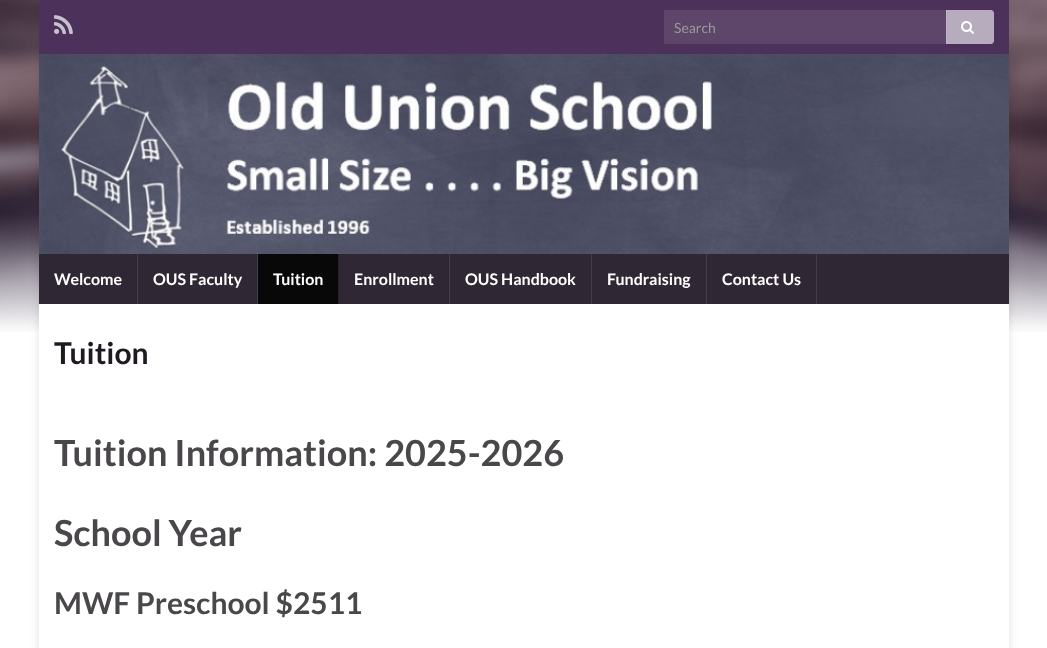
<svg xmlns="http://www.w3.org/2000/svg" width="1047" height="648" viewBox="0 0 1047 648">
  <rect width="100%" height="100%" fill="#fff"/>
  <image x="0" y="0" width="1047" height="332" href="img/1.png"/>
  <path d="M39 0h970v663H39z" fill="#0000001a" filter="blur(5px)"/>
  <path d="M39 0h970v54H39z" fill="#4c315a"/>
  <image x="54" y="15" width="19" height="19" href="img/2.png"/>
  <path d="M664 10h283v34H664z" fill="#5e466b"/>
  <path d="M946 10H991C992.5 10 994 11.5 994 13V41C994 42.5 992.5 44 991 44H946Z" fill="#ffffff99"/>
  <image x="961" y="21" width="13" height="13" href="img/3.png"/>
  <image x="39" y="54" width="970" height="200" href="img/4.png"/>
  <path d="M39 254h970v50H39z" fill="#2f2733"/>
  <path d="M137 254h1v50H137z" fill="#443d47"/>
  <path d="M257 254h1v50H257z" fill="#443d47"/>
  <path d="M338 254h1v50H338z" fill="#232323"/>
  <path d="M258 254h80v50H258z" fill="#080808"/>
  <path d="M449 254h1v50H449z" fill="#443d47"/>
  <path d="M591 254h1v50H591z" fill="#443d47"/>
  <path d="M706 254h1v50H706z" fill="#443d47"/>
  <path d="M816 254h1v50H816z" fill="#443d47"/>
  <path d="M39 304h970v344H39z" fill="#fff"/>
  <text x="674" y="33" font-family="Lato" font-size="14" fill="#999">Search</text>
  <g font-family="Lato" font-size="16" font-weight="bold" fill="#fff">
    <text x="54" y="285">Welcome</text>
    <text x="153" y="285">OUS Faculty</text>
    <text x="273" y="285">Tuition</text>
    <text x="354" y="285">Enrollment</text>
    <text x="465" y="285">OUS Handbook</text>
    <text x="607" y="285">Fundraising</text>
    <text x="722" y="285">Contact Us</text>
  </g>
  <text x="54" y="364" font-family="Lato" font-size="30" font-weight="bold" fill="#1f1a22">Tuition</text>
  <g font-family="Lato" font-size="36" font-weight="bold" fill="#4a474b">
    <text x="54" y="466">Tuition Information: 2025-2026</text>
    <text x="54" y="546">School Year</text>
  </g>
  <text x="54" y="614" font-family="Lato" font-size="30" font-weight="bold" fill="#4a474b">MWF Preschool $2511</text>
</svg>
